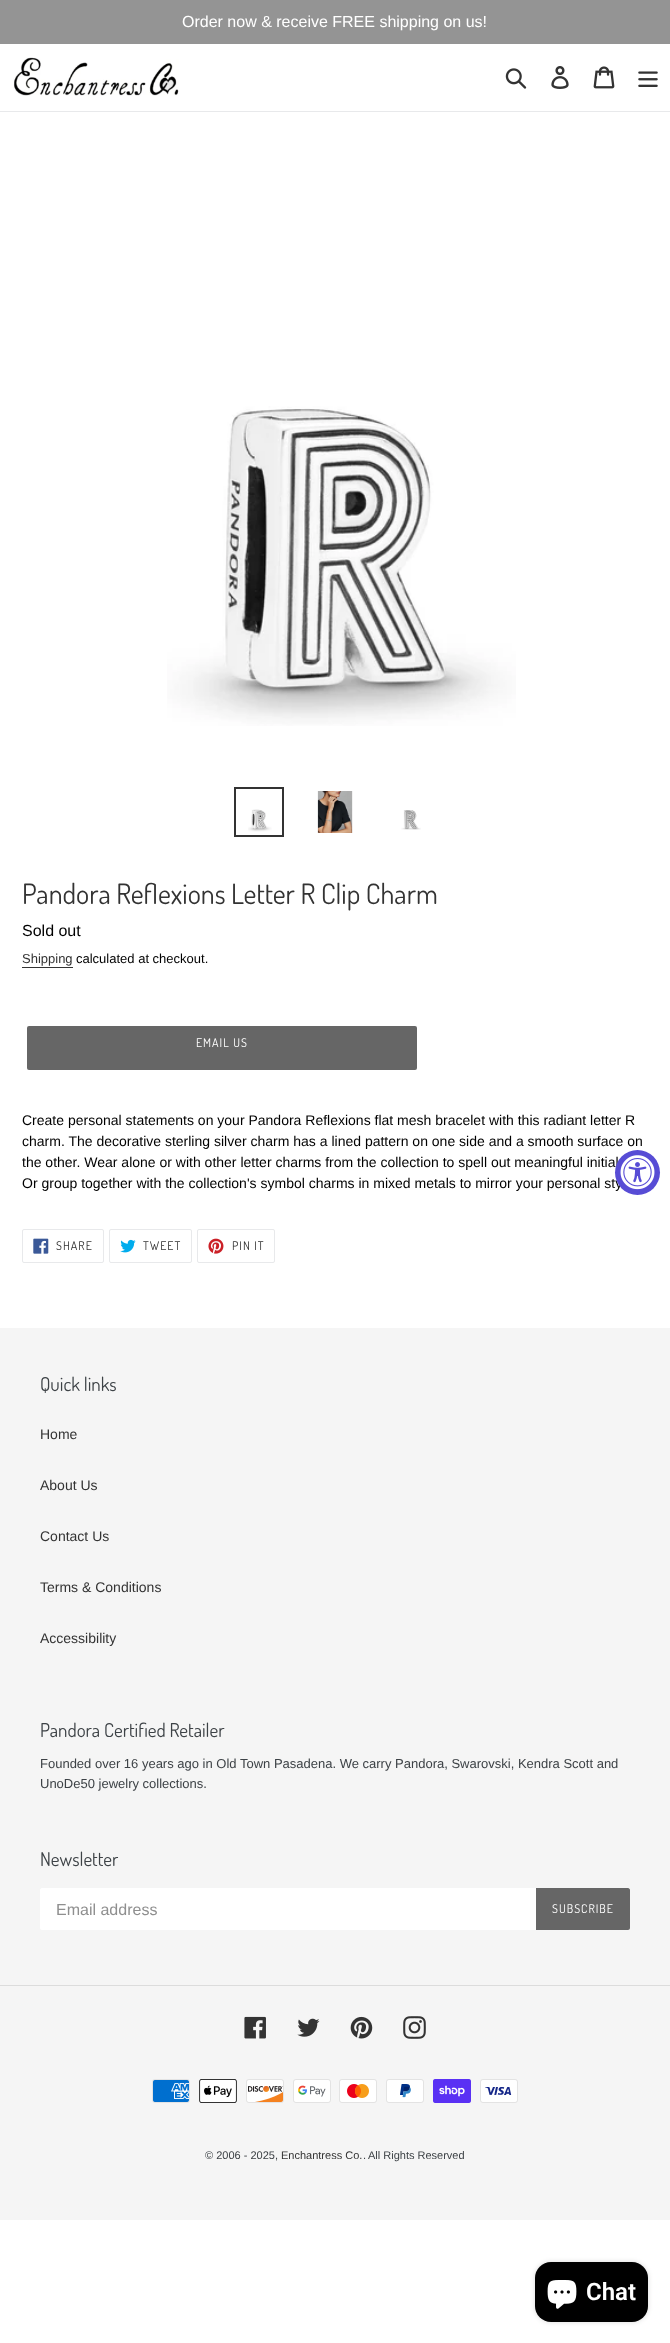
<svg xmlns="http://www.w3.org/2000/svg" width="670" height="2343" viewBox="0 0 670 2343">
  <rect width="100%" height="100%" fill="#fff"/>
  <path d="M0 0h670v44H0z" fill="#949494"/>
  <path d="M0 111h670v1H0z" fill="#e8e9eb"/>
  <image x="13" y="57" width="166" height="39" href="img/1.png"/>
  <image x="505" y="68" width="22" height="21" href="img/2.png"/>
  <image x="551" y="66" width="18" height="23" href="img/3.png"/>
  <image x="593" y="66" width="22" height="23" href="img/4.png"/>
  <image x="638" y="71" width="20" height="16" href="img/5.png"/>
  <image x="167" y="406" width="349" height="320" href="img/6.png"/>
  <path d="M235 788h48v48H235z" fill="none" stroke="#333" stroke-width="2"/>
  <image x="248" y="809" width="24" height="23" href="img/7.png"/>
  <image x="317" y="791" width="36" height="42" href="img/8.png"/>
  <image x="401" y="810" width="20" height="20" href="img/9.png"/>
  <path d="M22 967h51v1H22z" fill="#333"/>
  <rect x="27" y="1026" width="390" height="44" rx="2" fill="#666"/>
  <rect x="22.5" y="1229.5" width="81" height="33" rx="1.5" fill="none" stroke="#e8e9eb"/>
  <image x="33" y="1238" width="16" height="16" href="img/10.png"/>
  <rect x="109.5" y="1229.5" width="82" height="33" rx="1.5" fill="none" stroke="#e8e9eb"/>
  <image x="120" y="1239" width="16" height="14" href="img/11.png"/>
  <rect x="197.5" y="1229.5" width="77" height="33" rx="1.5" fill="none" stroke="#e8e9eb"/>
  <image x="208" y="1238" width="16" height="16" href="img/12.png"/>
  <path d="M0 1328h670v892H0z" fill="#f5f5f5"/>
  <path d="M42 1888H536V1930H42C41 1930 40 1929 40 1928V1890C40 1889 41 1888 42 1888Z" fill="#fff"/>
  <path d="M536 1888H628C629 1888 630 1889 630 1890V1928C630 1929 629 1930 628 1930H536Z" fill="#666"/>
  <path d="M0 1985h670v1H0z" fill="#dcdcdc"/>
  <image x="244" y="2016" width="22" height="23" href="img/13.png"/>
  <image x="297" y="2018" width="23" height="19" href="img/14.png"/>
  <image x="350" y="2016" width="23" height="23" href="img/15.png"/>
  <image x="403" y="2016" width="23" height="23" href="img/16.png"/>
  <image x="152" y="2079" width="38" height="24" href="img/17.png"/>
  <image x="199" y="2079" width="38" height="24" href="img/18.png"/>
  <image x="246" y="2079" width="38" height="24" href="img/19.png"/>
  <image x="293" y="2079" width="38" height="24" href="img/20.png"/>
  <image x="339" y="2079" width="38" height="24" href="img/21.png"/>
  <image x="386" y="2079" width="38" height="24" href="img/22.png"/>
  <image x="433" y="2079" width="38" height="24" href="img/23.png"/>
  <image x="480" y="2079" width="38" height="24" href="img/24.png"/>
  <rect x="535" y="2262" width="113" height="60" rx="16" fill="#00000026" filter="blur(2.5px)"/>
  <rect x="535" y="2262" width="113" height="60" rx="16" fill="#000"/>
  <image x="547" y="2280" width="30" height="29" href="img/26.png"/>
  <text x="182" y="27" font-family="Arimo" font-size="16" fill="#fff">Order now &amp; receive FREE shipping on us!</text>
  <text x="22" y="904" font-family="Dosis" font-size="28" fill="#333">Pandora Reflexions Letter R Clip Charm</text>
  <text x="22" y="936" font-family="Arimo" font-size="16" fill="#000">Sold out</text>
  <text x="22" y="963" font-family="Arimo" font-size="13" fill="#333">Shipping</text>
  <text x="76" y="963" font-family="Arimo" font-size="13" fill="#000">calculated at checkout.</text>
  <text x="196" y="1047" font-family="Dosis" font-size="12" letter-spacing="1" fill="#fff">EMAIL US</text>
  <g font-family="Arimo" font-size="14" fill="#000">
    <text x="22" y="1125">Create personal statements on your Pandora Reflexions flat mesh bracelet with this radiant letter R</text>
    <text x="22" y="1146">charm. The decorative sterling silver charm has a lined pattern on one side and a smooth surface on</text>
    <text x="22" y="1167">the other. Wear alone or with other letter charms from the collection to spell out meaningful initial</text>
    <text x="22" y="1188">Or group together with the collection's symbol charms in mixed metals to mirror your personal sty</text>
  </g>
  <g font-family="Dosis" font-size="12" letter-spacing="1" fill="#333">
    <text x="56" y="1250">SHARE</text>
    <text x="143" y="1250">TWEET</text>
    <text x="232" y="1250">PIN IT</text>
  </g>
  <text x="40" y="1391" font-family="Dosis" font-size="19" fill="#3d4246">Quick links</text>
  <g font-family="Arimo" font-size="14" fill="#333">
    <text x="40" y="1439">Home</text>
    <text x="40" y="1490">About Us</text>
    <text x="40" y="1541">Contact Us</text>
    <text x="40" y="1592">Terms &amp; Conditions</text>
    <text x="40" y="1643">Accessibility</text>
  </g>
  <text x="40" y="1737" font-family="Dosis" font-size="19" fill="#3d4246">Pandora Certified Retailer</text>
  <g font-family="Arimo" font-size="13" fill="#3d4246">
    <text x="40" y="1768">Founded over 16 years ago in Old Town Pasadena. We carry Pandora, Swarovski, Kendra Scott and</text>
    <text x="40" y="1788">UnoDe50 jewelry collections.</text>
  </g>
  <text x="40" y="1866" font-family="Dosis" font-size="19" fill="#3d4246">Newsletter</text>
  <text x="56" y="1915" font-family="Arimo" font-size="16" fill="#8f8f8f">Email address</text>
  <text x="552" y="1913" font-family="Dosis" font-size="12" letter-spacing="1" fill="#fff">SUBSCRIBE</text>
  <text x="205" y="2159" font-family="Arimo" font-size="11" fill="#3d4246">© 2006 - 2025,</text>
  <text x="281" y="2159" font-family="Arimo" font-size="11" fill="#333">Enchantress Co.</text>
  <g font-family="Arimo" font-size="11" fill="#3d4246">
    <text x="363" y="2159">.</text>
    <text x="368" y="2159">All Rights Reserved</text>
  </g>
  <circle cx="637.5" cy="1172.5" r="22.5" fill="#574cd5"/>
  <image x="620" y="1155" width="35" height="35" href="img/25.png"/>
  <text x="586" y="2300" font-family="Roboto" font-size="24" font-weight="600" fill="#fff">Chat</text>
</svg>
